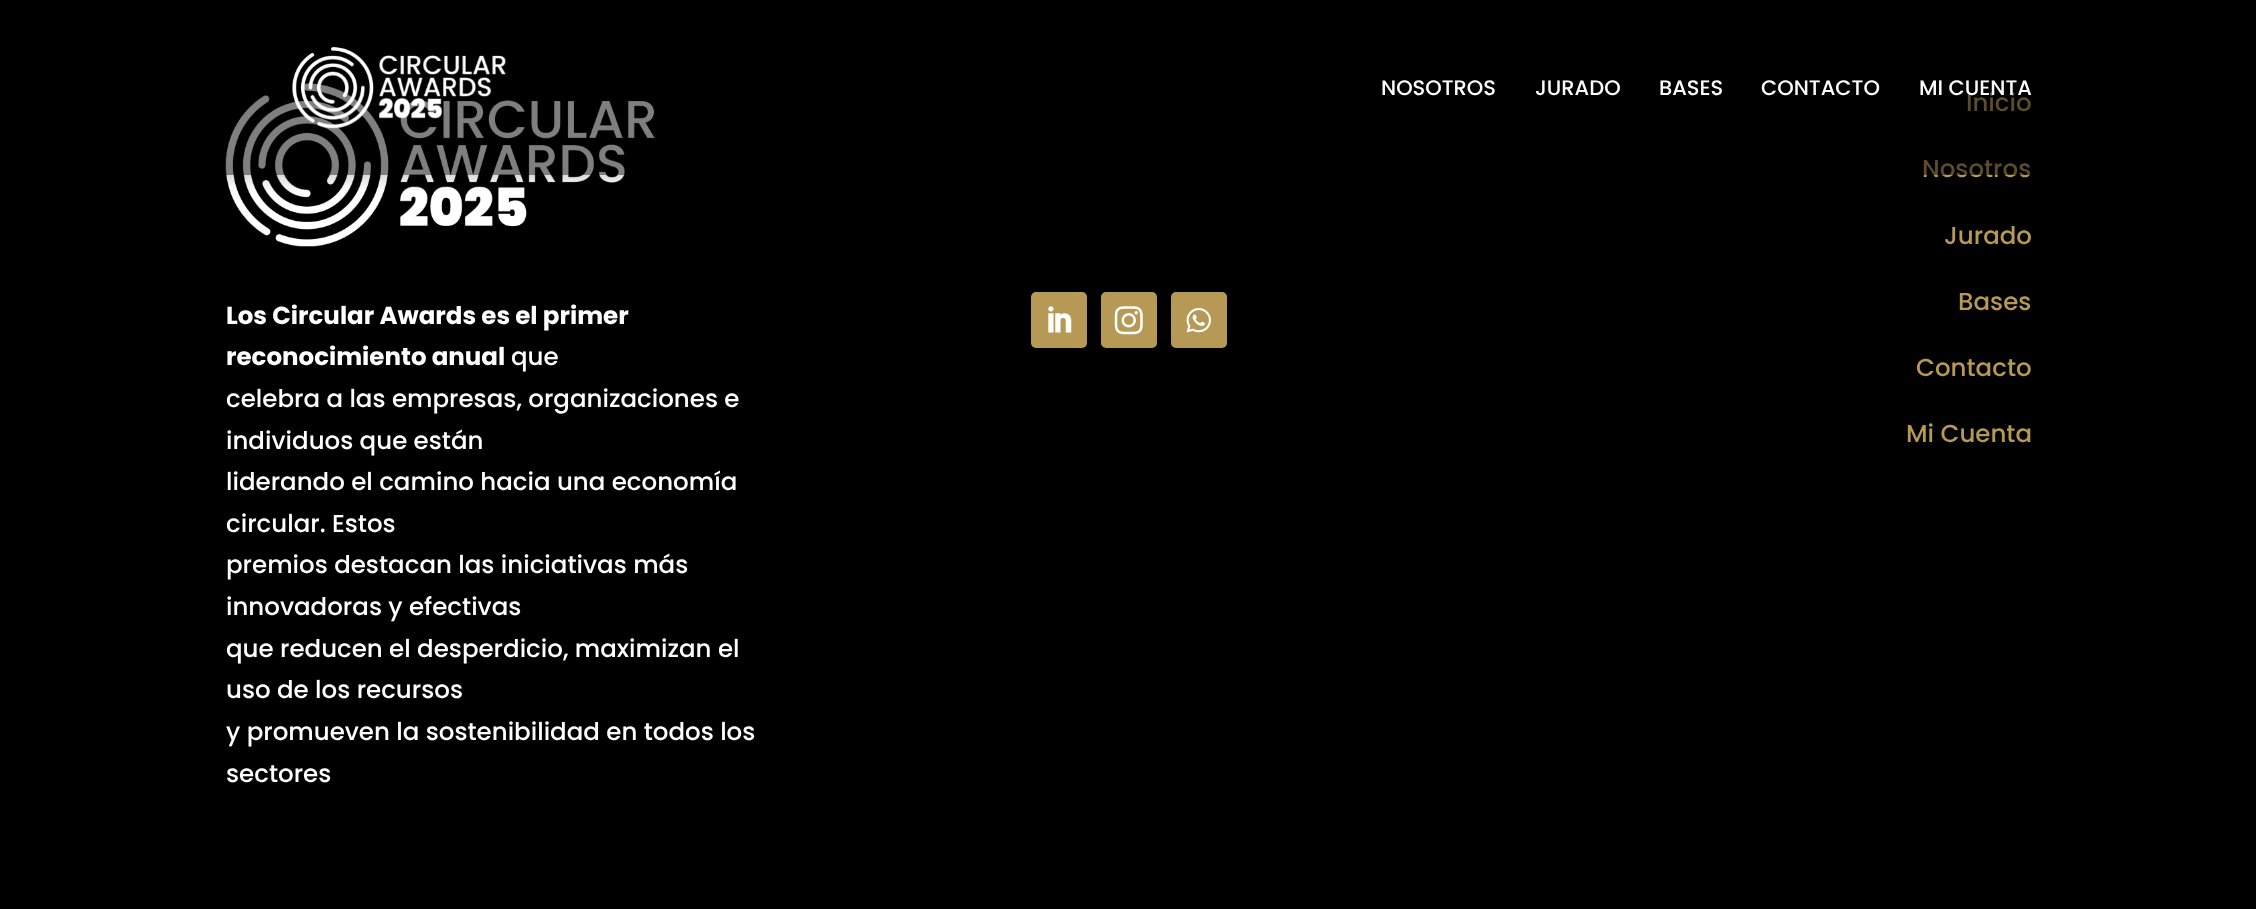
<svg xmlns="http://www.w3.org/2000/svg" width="2256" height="909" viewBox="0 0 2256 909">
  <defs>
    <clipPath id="clip1"><path d="M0 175h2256v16H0z"/></clipPath>
  </defs>
  <rect width="100%" height="100%" fill="#000"/>
  <image x="225" y="83" width="430" height="164" href="img/2.png"/>
  <g clip-path="url(#clip1)">
    <path d="M0 4h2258v175H0z" fill="#00000033" filter="blur(9px)"/>
  </g>
  <rect x="1031" y="292" width="56" height="56" rx="5" fill="#b69955"/>
  <image x="1048" y="306" width="24" height="27" href="img/3.png"/>
  <rect x="1101" y="292" width="56" height="56" rx="5" fill="#b69955"/>
  <image x="1114" y="306" width="29" height="29" href="img/4.png"/>
  <rect x="1171" y="292" width="56" height="56" rx="5" fill="#b69955"/>
  <image x="1186" y="308" width="25" height="25" href="img/5.png"/>
  <g font-family="Poppins" font-size="24.5" font-weight="bold" fill="#fff">
    <text x="226" y="324">Los Circular Awards es el primer</text>
    <text x="226" y="365">reconocimiento anual</text>
  </g>
  <g font-family="Poppins" font-size="24.5" font-weight="500" fill="#fff">
    <text x="511" y="365">que</text>
    <text x="226" y="407">celebra a las empresas, organizaciones e</text>
    <text x="226" y="449">individuos que están</text>
    <text x="226" y="490">liderando el camino hacia una economía</text>
    <text x="226" y="532">circular. Estos</text>
    <text x="226" y="573">premios destacan las iniciativas más</text>
    <text x="226" y="615">innovadoras y efectivas</text>
    <text x="226" y="657">que reducen el desperdicio, maximizan el</text>
    <text x="226" y="698">uso de los recursos</text>
    <text x="226" y="740">y promueven la sostenibilidad en todos los</text>
    <text x="226" y="782">sectores</text>
  </g>
  <g font-family="Poppins" font-size="24.5" font-weight="500" fill="#b69955">
    <text x="1966" y="111">Inicio</text>
    <text x="1922" y="177">Nosotros</text>
  </g>
  <path d="M225 83h1806v92H225z" fill="#00000080"/>
  <g font-family="Poppins" font-size="21" font-weight="500" fill="#fff">
    <text x="1919" y="95">MI CUENTA</text>
    <text x="1761" y="95">CONTACTO</text>
    <text x="1659" y="95">BASES</text>
    <text x="1535" y="95">JURADO</text>
    <text x="1381" y="95">NOSOTROS</text>
  </g>
  <image x="292" y="47" width="214" height="82" href="img/1.png"/>
  <g font-family="Poppins" font-size="24.5" font-weight="500" fill="#b69955">
    <text x="1944" y="244">Jurado</text>
    <text x="1958" y="310">Bases</text>
    <text x="1916" y="376">Contacto</text>
    <text x="1906" y="442">Mi Cuenta</text>
  </g>
</svg>
